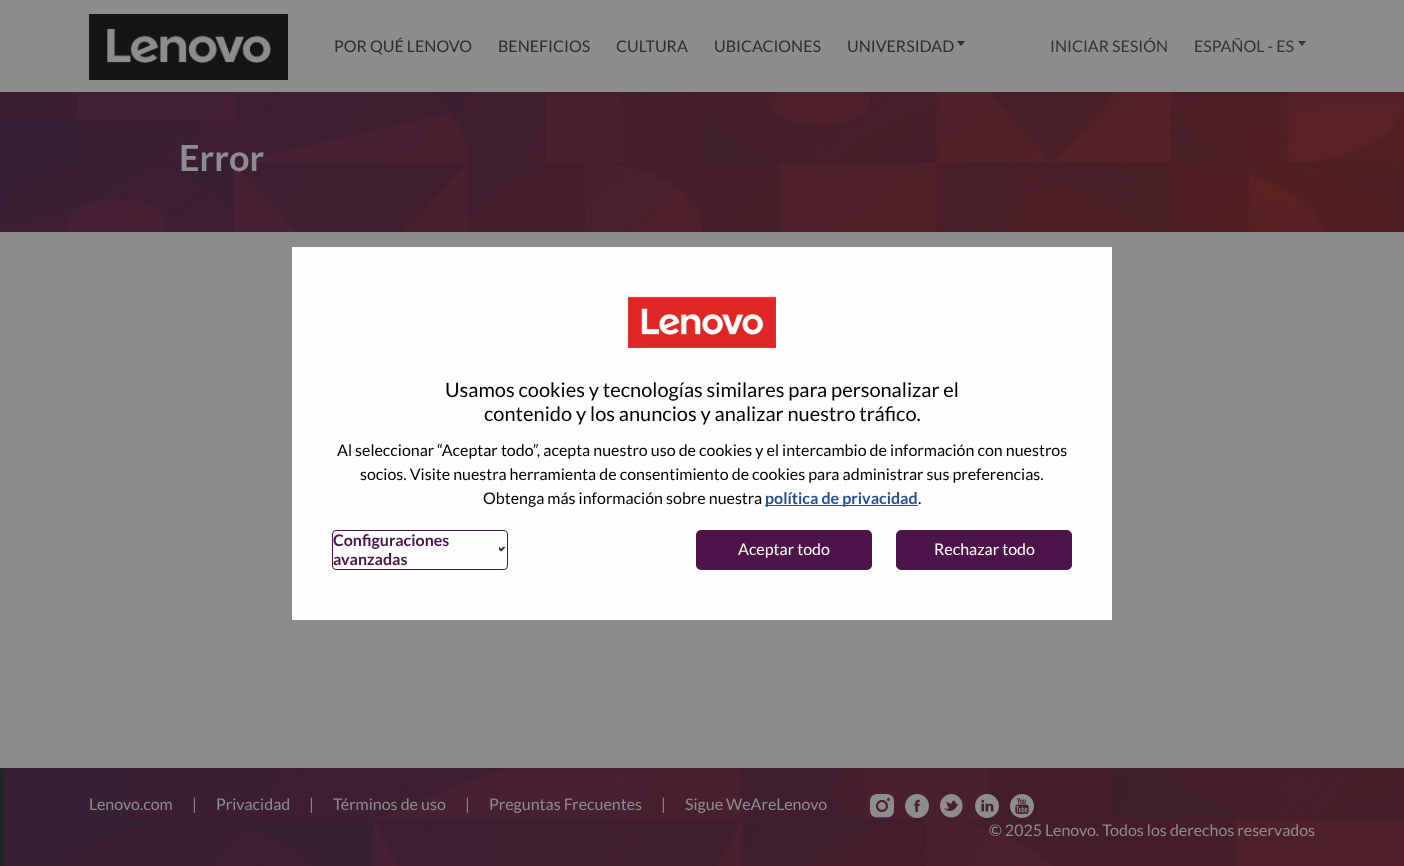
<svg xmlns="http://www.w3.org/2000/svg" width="1404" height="866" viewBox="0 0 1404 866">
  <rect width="100%" height="100%" fill="#8d8d8d"/>
  <image x="89" y="14" width="199" height="66" href="img/1.png"/>
  <path d="M957 41H965L961 46Z" fill="#2d2d2d"/>
  <path d="M1298 41H1306L1302 46Z" fill="#333"/>
  <image x="0" y="92" width="1404" height="140" href="img/2.png"/>
  <image x="0" y="768" width="1404" height="98" href="img/3.png"/>
  <image x="870" y="794" width="24" height="24" href="img/4.png"/>
  <image x="905" y="794" width="24" height="24" href="img/5.png"/>
  <image x="940" y="794" width="23" height="24" href="img/6.png"/>
  <image x="975" y="794" width="24" height="24" href="img/7.png"/>
  <image x="1010" y="794" width="24" height="24" href="img/8.png"/>
  <path d="M292 247h820v373H292z" fill="#fefefe"/>
  <image x="628" y="296" width="148" height="52" href="img/9.png"/>
  <path d="M765 505h153v1H765z" fill="#294e95"/>
  <rect x="332.5" y="530.5" width="175" height="39" rx="3.5" fill="none" stroke="#4d144a"/>
  <image x="499" y="547" width="7" height="5" href="img/10.png"/>
  <rect x="696" y="530" width="176" height="40" rx="5" fill="#4d144a"/>
  <rect x="896.5" y="530.5" width="175" height="39" rx="4.5" fill="#4d144a" stroke="#4d144a"/>
  <g font-family="Lato" font-size="16" fill="#2d2d2d">
    <text x="334" y="52">POR QUÉ LENOVO</text>
    <text x="498" y="52">BENEFICIOS</text>
    <text x="616" y="52">CULTURA</text>
    <text x="714" y="52">UBICACIONES</text>
    <text x="847" y="52">UNIVERSIDAD</text>
  </g>
  <g font-family="Lato" font-size="16" fill="#333">
    <text x="1050" y="52">INICIAR SESIÓN</text>
    <text x="1194" y="52">ESPAÑOL - ES</text>
  </g>
  <text x="179" y="171" font-family="Lato" font-size="36" font-weight="bold" fill="#8d8d8d">Error</text>
  <g font-family="Lato" font-size="16" fill="#8d8d8d">
    <text x="89" y="810">Lenovo.com</text>
    <text x="192" y="810">|</text>
    <text x="216" y="810">Privacidad</text>
    <text x="309" y="810">|</text>
    <text x="333" y="810">Términos de uso</text>
    <text x="465" y="810">|</text>
    <text x="489" y="810">Preguntas Frecuentes</text>
    <text x="661" y="810">|</text>
    <text x="685" y="810">Sigue WeAreLenovo</text>
    <text x="989" y="836">© 2025 Lenovo. Todos los derechos reservados</text>
  </g>
  <g font-family="Lato" font-size="20" fill="#000">
    <text x="445" y="397">Usamos cookies y tecnologías similares para personalizar el</text>
    <text x="484" y="421">contenido y los anuncios y analizar nuestro tráfico.</text>
  </g>
  <g font-family="Lato" font-size="16" fill="#000">
    <text x="337" y="456">Al seleccionar “Aceptar todo”, acepta nuestro uso de cookies y el intercambio de información con nuestros</text>
    <text x="360" y="480">socios. Visite nuestra herramienta de consentimiento de cookies para administrar sus preferencias.</text>
    <text x="483" y="504">Obtenga más información sobre nuestra</text>
  </g>
  <text x="765" y="504" font-family="Lato" font-size="16" font-weight="bold" fill="#294e95">política de privacidad</text>
  <text x="918" y="504" font-family="Lato" font-size="16" fill="#000">.</text>
  <g font-family="Lato" font-size="16" font-weight="bold" fill="#4d144a">
    <text x="333" y="546">Configuraciones</text>
    <text x="333" y="565">avanzadas</text>
  </g>
  <g font-family="Lato" font-size="16" fill="#fff">
    <text x="738" y="555">Aceptar todo</text>
    <text x="934" y="555">Rechazar todo</text>
  </g>
</svg>
